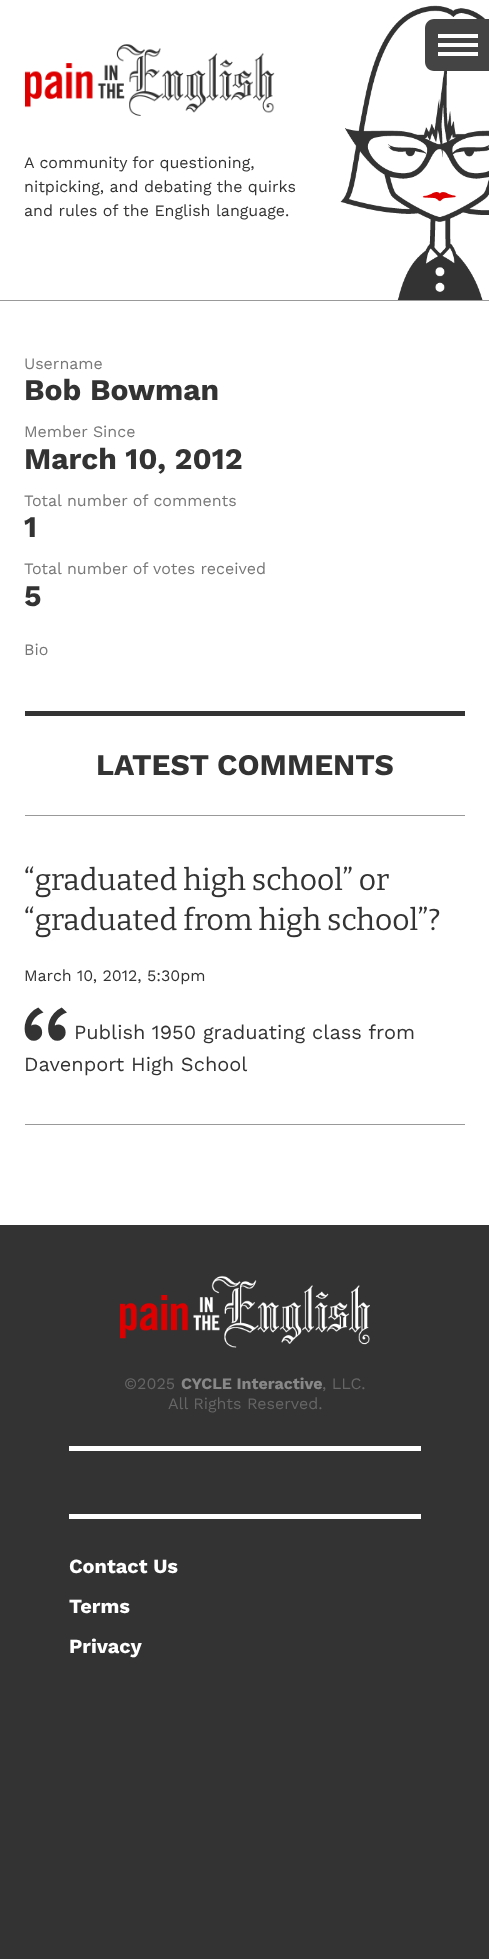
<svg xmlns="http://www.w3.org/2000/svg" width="489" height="1959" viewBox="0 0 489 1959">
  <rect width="100%" height="100%" fill="#333"/>
  <path d="M0 0h489v1225H0z" fill="#fff"/>
  <image x="340" y="5" width="149" height="295" href="img/2.png"/>
  <path d="M434 19H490V71H434C429 71 425 67 425 62V28C425 23 429 19 434 19Z" fill="#444"/>
  <path d="M438 34H478V38H438ZM438 43H478V47H438ZM438 52H478V56H438Z" fill="#fff"/>
  <path d="M0 300h489v1H0z" fill="#999"/>
  <image x="25" y="44" width="250" height="72" href="img/1.png"/>
  <path d="M25 711h440v5H25z" fill="#333"/>
  <path d="M25 815h440v1H25z" fill="#999"/>
  <path d="M25 1124h440v1H25z" fill="#999"/>
  <image x="120" y="1275" width="250" height="73" href="img/3.png"/>
  <path d="M69 1446h352v5H69z" fill="#fff"/>
  <path d="M69 1514h352v5H69z" fill="#fff"/>
  <g font-family="Work Sans" font-size="16" fill="#333">
    <text x="24" y="168">A community for questioning,</text>
    <text x="24" y="192">nitpicking, and debating the quirks</text>
    <text x="24" y="216">and rules of the English language.</text>
  </g>
  <text x="24" y="369" font-family="Work Sans" font-size="16" fill="#777">Username</text>
  <text x="24" y="400" font-family="Work Sans" font-size="30" font-weight="bold" fill="#333">Bob Bowman</text>
  <text x="24" y="437" font-family="Work Sans" font-size="16" fill="#777">Member Since</text>
  <text x="24" y="469" font-family="Work Sans" font-size="30" font-weight="bold" fill="#333">March 10, 2012</text>
  <text x="24" y="506" font-family="Work Sans" font-size="16" fill="#777">Total number of comments</text>
  <text x="24" y="537" font-family="Work Sans" font-size="30" font-weight="bold" fill="#333">1</text>
  <text x="24" y="574" font-family="Work Sans" font-size="16" fill="#777">Total number of votes received</text>
  <text x="24" y="606" font-family="Work Sans" font-size="30" font-weight="bold" fill="#333">5</text>
  <text x="24" y="655" font-family="Work Sans" font-size="16" fill="#777">Bio</text>
  <text x="96" y="775" font-family="Work Sans" font-size="30" font-weight="bold" fill="#333">LATEST COMMENTS</text>
  <g font-family="Bitter" font-size="30" font-weight="100" fill="#333">
    <text x="24" y="890">“graduated high school” or</text>
    <text x="24" y="930">“graduated from high school”?</text>
  </g>
  <text x="24" y="981" font-family="Work Sans" font-size="16" fill="#333">March 10, 2012, 5:30pm</text>
  <text x="18" y="1095" font-family="Work Sans" font-size="125" fill="#333">“</text>
  <g font-family="Work Sans" font-size="20" fill="#333">
    <text x="74" y="1039">Publish 1950 graduating class from</text>
    <text x="24" y="1071">Davenport High School</text>
  </g>
  <text x="124" y="1389" font-family="Work Sans" font-size="16" fill="#666">©2025</text>
  <text x="181" y="1389" font-family="Work Sans" font-size="16" font-weight="bold" fill="#888">CYCLE Interactive</text>
  <g font-family="Work Sans" font-size="16" fill="#666">
    <text x="322" y="1389">, LLC.</text>
    <text x="168" y="1409">All Rights Reserved.</text>
  </g>
  <g font-family="Work Sans" font-size="20" font-weight="bold" fill="#fff">
    <text x="69" y="1573">Contact Us</text>
    <text x="69" y="1613">Terms</text>
    <text x="69" y="1653">Privacy</text>
  </g>
</svg>
